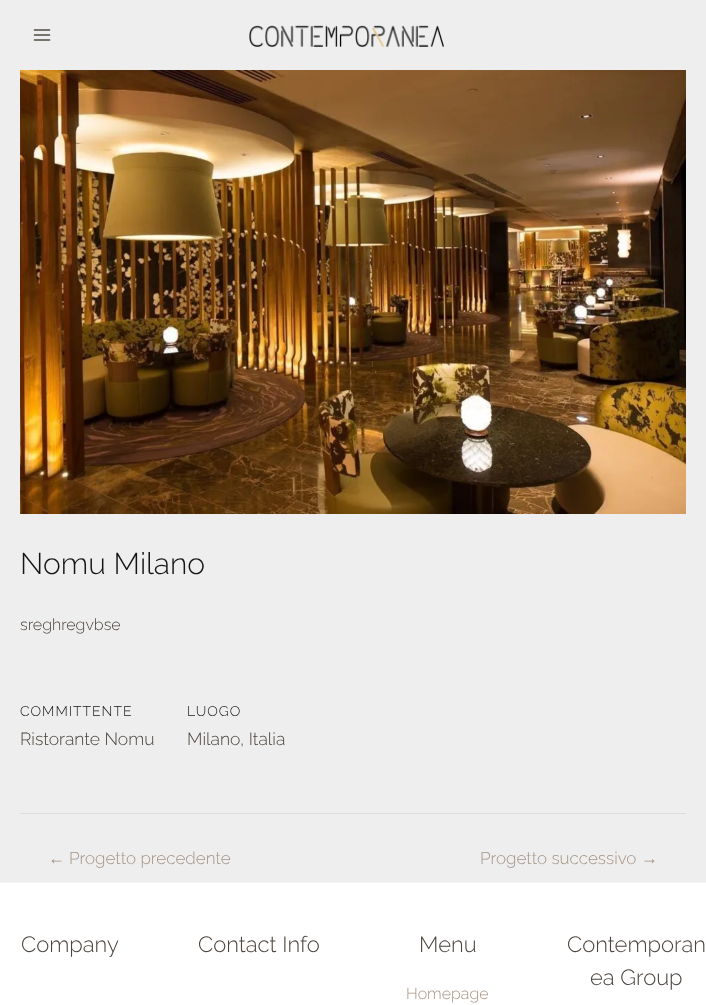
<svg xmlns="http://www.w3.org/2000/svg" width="706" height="1005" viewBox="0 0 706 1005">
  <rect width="100%" height="100%" fill="#eee"/>
  <image x="33" y="29" width="18" height="12" href="img/1.png"/>
  <image x="249" y="25" width="195" height="22" href="img/2.png"/>
  <image x="20" y="70" width="666" height="444" href="img/3.png"/>
  <path d="M20 813h666v1H20z" fill="#ddd"/>
  <path d="M0 883h706v122H0z" fill="#fff"/>
  <path d="M0 882h706v1H0z" fill="#f2f5f7"/>
  <text x="20" y="574" font-family="Raleway" font-size="30" font-weight="100" fill="#171514">Nomu Milano</text>
  <text x="20" y="630" font-family="Raleway" font-size="16" font-weight="100" fill="#4d443d">sreghregvbse</text>
  <text x="20" y="716" font-family="Raleway" font-size="14" font-weight="100" letter-spacing="1" fill="#171514">COMMITTENTE</text>
  <text x="20" y="745" font-family="Raleway" font-size="17.5" font-weight="100" fill="#4d443d">Ristorante Nomu</text>
  <text x="187" y="716" font-family="Raleway" font-size="14" font-weight="100" letter-spacing="1" fill="#171514">LUOGO</text>
  <text x="187" y="745" font-family="Raleway" font-size="17.5" font-weight="100" fill="#4d443d">Milano, Italia</text>
  <text x="48" y="864" font-family="Liberation Sans" font-size="17" fill="#a69485">←</text>
  <g font-family="Raleway" font-size="17" font-weight="100" fill="#a69485">
    <text x="69" y="864">Progetto precedente</text>
    <text x="480" y="864">Progetto successivo</text>
  </g>
  <text x="641" y="864" font-family="Liberation Sans" font-size="17" fill="#a69485">→</text>
  <g font-family="Raleway" font-size="22" font-weight="100" fill="#4d443d">
    <text x="21" y="952">Company</text>
    <text x="198" y="952">Contact Info</text>
    <text x="419" y="952">Menu</text>
  </g>
  <text x="406" y="999" font-family="Raleway" font-size="16" font-weight="100" fill="#a69485">Homepage</text>
  <g font-family="Raleway" font-size="22" font-weight="100" fill="#4d443d">
    <text x="567" y="952">Contemporan</text>
    <text x="590" y="985">ea Group</text>
  </g>
</svg>
